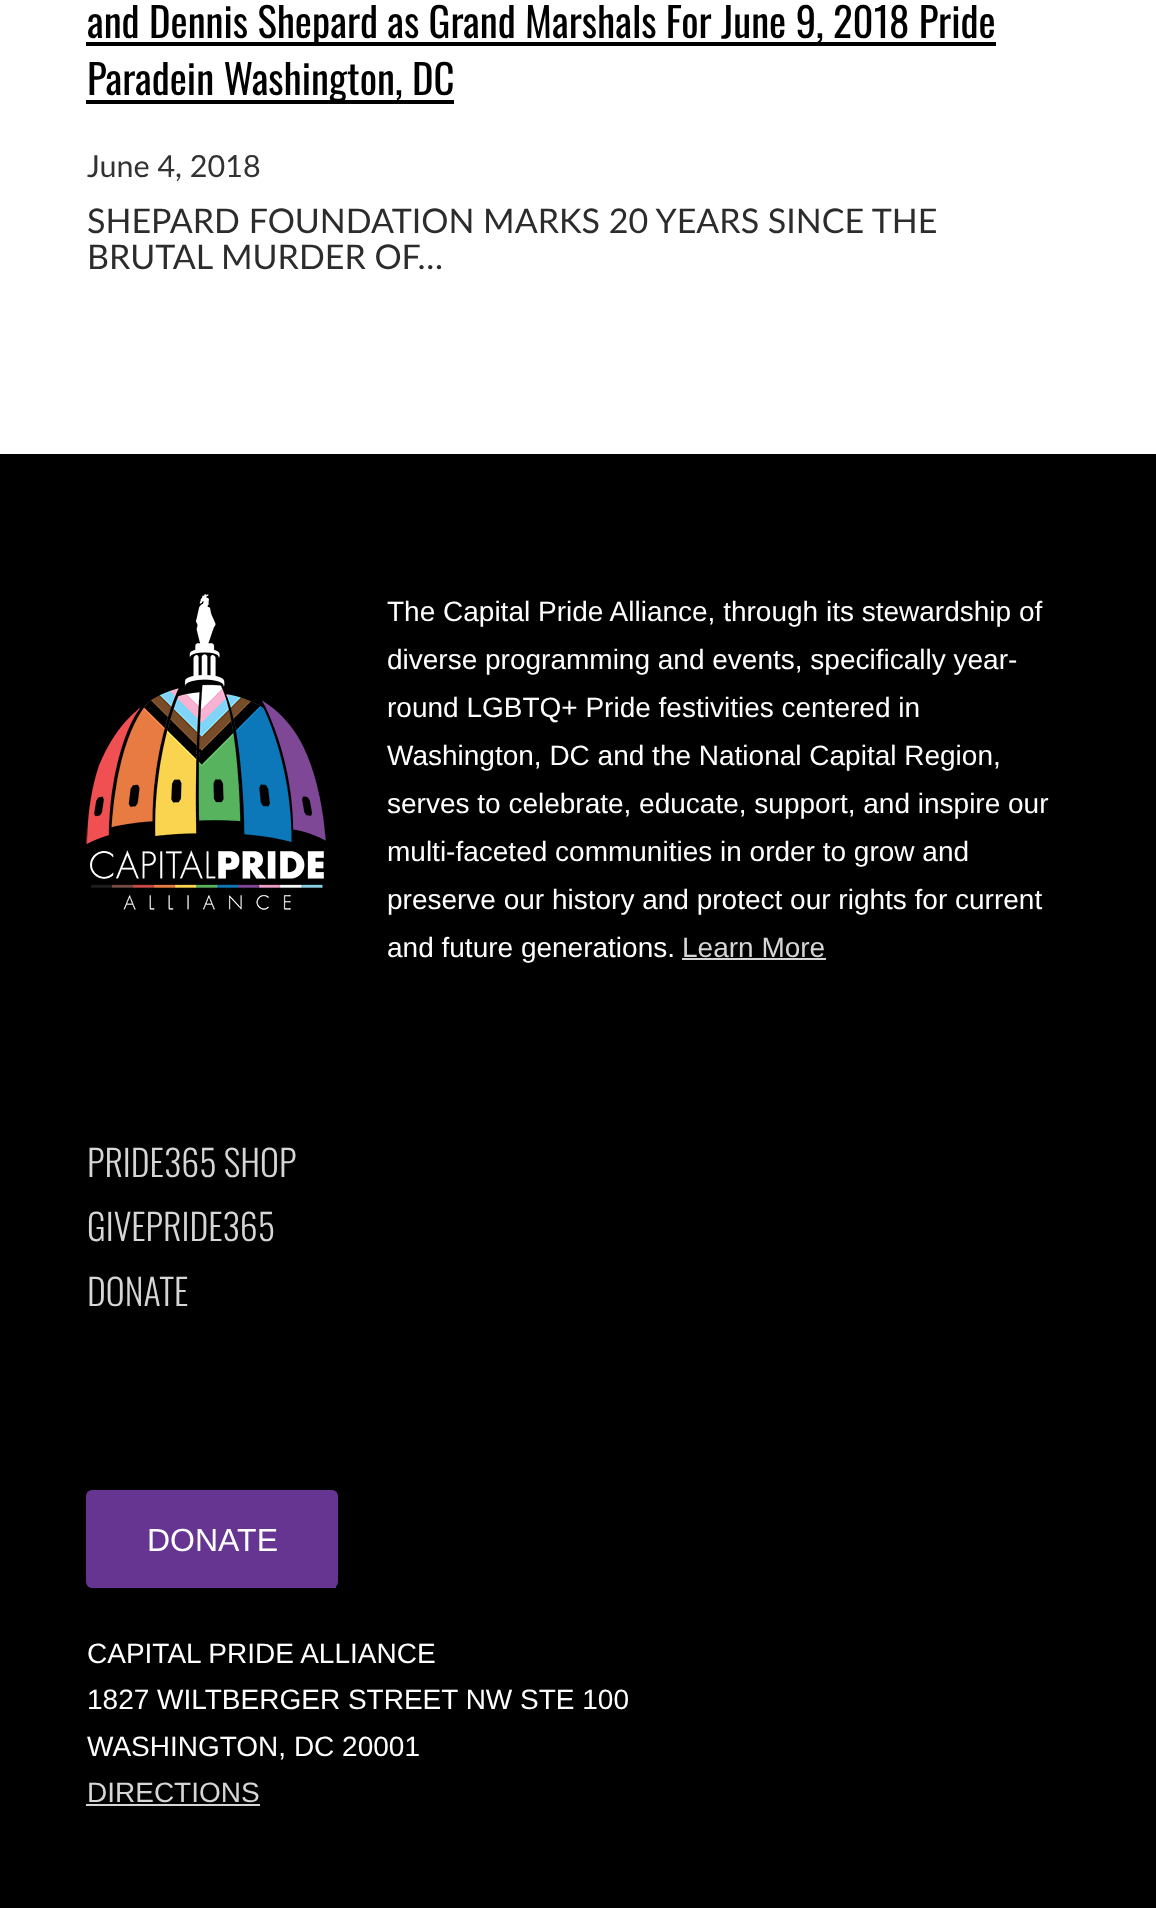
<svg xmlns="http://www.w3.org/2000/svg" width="1156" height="1908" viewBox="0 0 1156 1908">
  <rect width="100%" height="100%" fill="#fff"/>
  <path d="M86 42h910v4H86z" fill="#000"/>
  <path d="M86 100h368v4H86z" fill="#000"/>
  <path d="M0 454h1156v1454H0z" fill="#000"/>
  <image x="86" y="594" width="240" height="316" href="img/1.png"/>
  <path d="M682 958h144v2H682z" fill="#d6d6d6"/>
  <rect x="86" y="1490" width="252" height="98" rx="6" fill="#663491"/>
  <path d="M90 1586h246v2H90z" fill="#663491"/>
  <path d="M86 1804h174v2H86z" fill="#d6d6d6"/>
  <g font-family="Oswald" font-size="40.8" fill="#000">
    <text x="87" y="38">and Dennis Shepard as Grand Marshals For June 9, 2018 Pride</text>
    <text x="87" y="95">Paradein Washington, DC</text>
  </g>
  <text x="87" y="177" font-family="Lato" font-size="30.5" fill="#323232">June 4, 2018</text>
  <g font-family="Lato" font-size="34" fill="#2c2c2c">
    <text x="87" y="233">SHEPARD FOUNDATION MARKS 20 YEARS SINCE THE</text>
    <text x="87" y="269">BRUTAL MURDER OF…</text>
  </g>
  <g font-family="Liberation Sans" font-size="28" fill="#fff">
    <text x="387" y="621">The Capital Pride Alliance, through its stewardship of</text>
    <text x="387" y="669">diverse programming and events, specifically year-</text>
    <text x="387" y="717">round LGBTQ+ Pride festivities centered in</text>
    <text x="387" y="765">Washington, DC and the National Capital Region,</text>
    <text x="387" y="813">serves to celebrate, educate, support, and inspire our</text>
    <text x="387" y="861">multi-faceted communities in order to grow and</text>
    <text x="387" y="909">preserve our history and protect our rights for current</text>
    <text x="387" y="957">and future generations.</text>
  </g>
  <text x="682" y="957" font-family="Liberation Sans" font-size="28" fill="#d6d6d6">Learn More</text>
  <g font-family="Oswald" font-size="36" font-weight="300" fill="#d6d6d6">
    <text x="87" y="1177">PRIDE365 SHOP</text>
    <text x="87" y="1241">GIVEPRIDE365</text>
    <text x="87" y="1306">DONATE</text>
  </g>
  <text x="147" y="1551" font-family="Liberation Sans" font-size="32" fill="#fff">DONATE</text>
  <g font-family="Liberation Sans" font-size="28" fill="#fff">
    <text x="87" y="1663">CAPITAL PRIDE ALLIANCE</text>
    <text x="87" y="1709">1827 WILTBERGER STREET NW STE 100</text>
    <text x="87" y="1756">WASHINGTON, DC 20001</text>
  </g>
  <text x="87" y="1802" font-family="Liberation Sans" font-size="28" fill="#d6d6d6">DIRECTIONS</text>
</svg>
